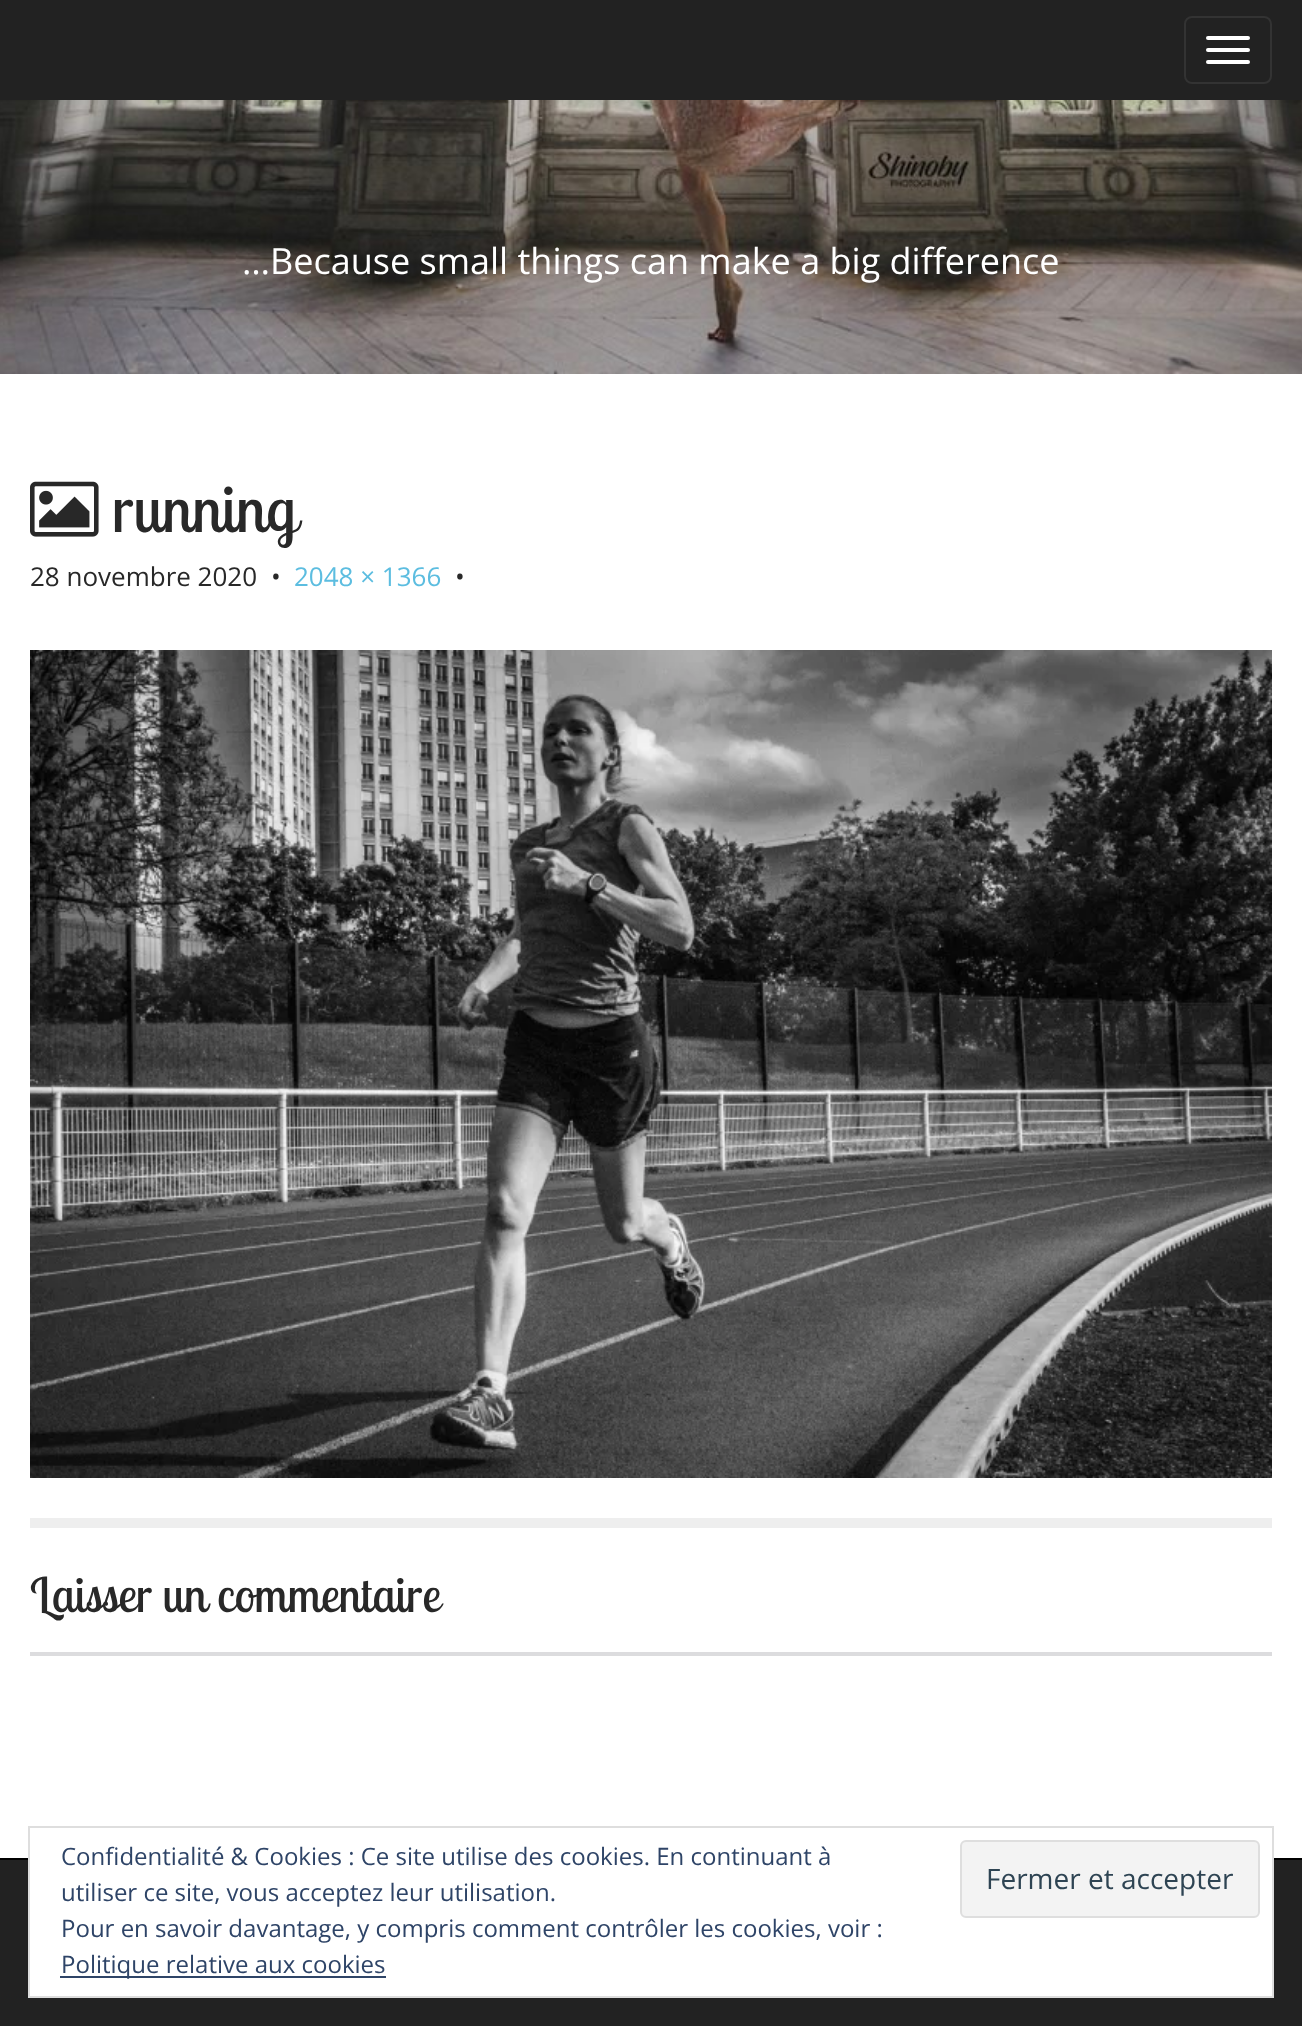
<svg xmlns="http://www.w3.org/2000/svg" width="1302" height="2026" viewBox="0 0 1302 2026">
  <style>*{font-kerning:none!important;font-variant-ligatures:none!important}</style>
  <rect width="100%" height="100%" fill="#fff"/>
  <path d="M0 0h1302v100H0z" fill="#222"/>
  <rect x="1185" y="17" width="86" height="66" rx="7" fill="none" stroke="#333" stroke-width="2"/>
  <rect x="1206" y="36" width="44" height="4" rx="2" fill="#fff"/>
  <rect x="1206" y="48" width="44" height="4" rx="2" fill="#fff"/>
  <rect x="1206" y="60" width="44" height="4" rx="2" fill="#fff"/>
  <image x="0" y="100" width="1302" height="274" href="img/1.png"/>
  <path d="M30 1518h1242v10H30z" fill="#eee"/>
  <image x="30" y="481" width="69" height="56" href="img/2.png"/>
  <image x="30" y="650" width="1242" height="828" href="img/3.png"/>
  <path d="M30 1652h1242v4H30z" fill="#dcdcde"/>
  <path d="M0 1860h1302v166H0z" fill="#222"/>
  <path d="M0 1858h1302v2H0z" fill="#000"/>
  <path d="M30 1858h1242v138H30z" fill="#fff"/>
  <path d="M29 1827h1244v170H29z" fill="none" stroke="#dedede" stroke-width="2"/>
  <rect x="961" y="1841" width="298" height="76" rx="5" fill="#f3f3f3" stroke="#dedede" stroke-width="2"/>
  <path d="M60 1976h326v2H60z" fill="#2e4467"/>
  <text x="242" y="274" font-family="Open Sans" font-size="36" fill="#fff">…Because small things can make a big difference</text>
  <text x="112" y="532" font-family="Lobster Two" font-size="64" fill="#282828">running</text>
  <g font-family="Open Sans" font-size="26" fill="#282828">
    <text x="30" y="586">28 novembre 2020</text>
    <text x="271" y="586">•</text>
  </g>
  <text x="294" y="586" font-family="Open Sans" font-size="26" fill="#5cbde0">2048 × 1366</text>
  <text x="455" y="586" font-family="Open Sans" font-size="26" fill="#282828">•</text>
  <text x="30" y="1612" font-family="Lobster Two" font-size="48" fill="#282828">Laisser un commentaire</text>
  <g font-family="Open Sans" font-size="24" fill="#2e4467">
    <text x="61" y="1865">Confidentialité &amp; Cookies : Ce site utilise des cookies. En continuant à</text>
    <text x="61" y="1901">utiliser ce site, vous acceptez leur utilisation.</text>
  </g>
  <text x="986" y="1889" font-family="Open Sans" font-size="28" fill="#2e4453">Fermer et accepter</text>
  <g font-family="Open Sans" font-size="24" fill="#2e4467">
    <text x="61" y="1937">Pour en savoir davantage, y compris comment contrôler les cookies, voir :</text>
    <text x="61" y="1973">Politique relative aux cookies</text>
  </g>
</svg>
